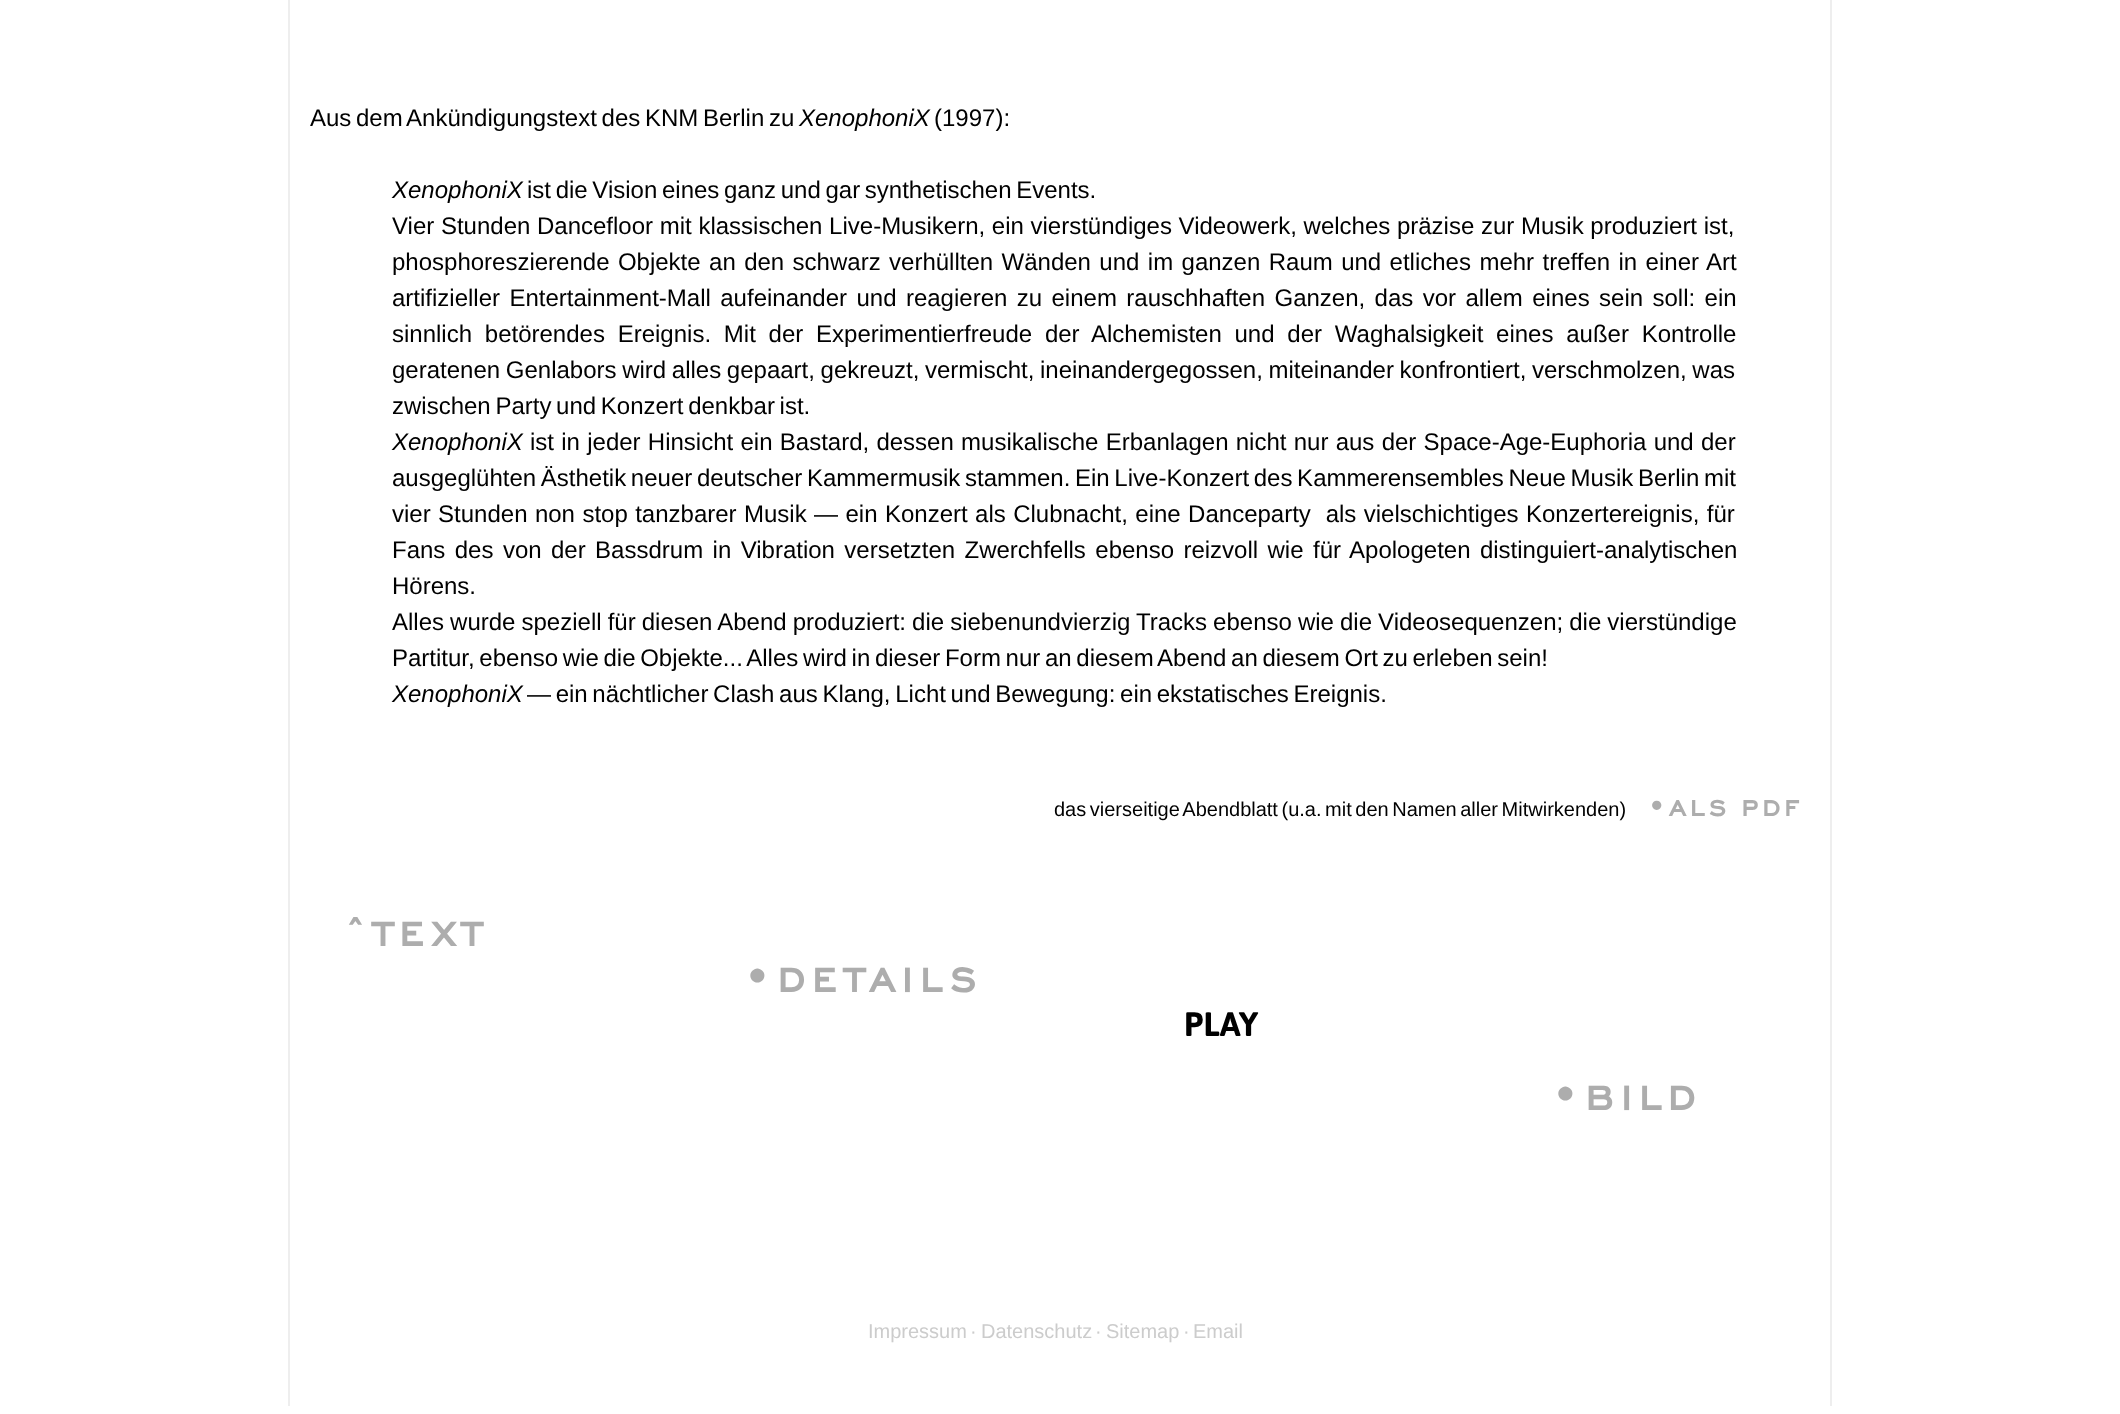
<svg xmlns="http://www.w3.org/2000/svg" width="2120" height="1414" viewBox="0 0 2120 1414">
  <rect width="100%" height="100%" fill="#fff"/>
  <path d="M1830 0h2v1406H1830z" fill="#eee"/>
  <path d="M288 0h2v1406H288z" fill="#eee"/>
  <text x="310" y="126" word-spacing="-2" font-family="Liberation Sans" font-size="24" fill="#000">Aus dem Ankündigungstext des KNM Berlin zu</text>
  <text x="799" y="126" font-family="Liberation Sans" font-size="24" font-style="italic" fill="#000">XenophoniX</text>
  <text x="934" y="126" font-family="Liberation Sans" font-size="24" fill="#000">(1997):</text>
  <text x="392" y="198" font-family="Liberation Sans" font-size="24" font-style="italic" fill="#000">XenophoniX</text>
  <g font-family="Liberation Sans" font-size="24" fill="#000">
    <text x="527" y="198" word-spacing="-2">ist die Vision eines ganz und gar synthetischen Events.</text>
    <text x="392" y="234">Vier Stunden Dancefloor mit klassischen Live-Musikern, ein vierstündiges Videowerk, welches präzise zur Musik produziert ist,</text>
    <text x="392" y="270" word-spacing="1.75">phosphoreszierende Objekte an den schwarz verhüllten Wänden und im ganzen Raum und etliches mehr treffen in einer Art</text>
    <text x="392" y="306" word-spacing="2.75">artifizieller Entertainment-Mall aufeinander und reagieren zu einem rauschhaften Ganzen, das vor allem eines sein soll: ein</text>
    <text x="392" y="342" word-spacing="6.1">sinnlich betörendes Ereignis. Mit der Experimentierfreude der Alchemisten und der Waghalsigkeit eines außer Kontrolle</text>
    <text x="392" y="378" word-spacing="-1">geratenen Genlabors wird alles gepaart, gekreuzt, vermischt, ineinandergegossen, miteinander konfrontiert, verschmolzen, was</text>
    <text x="392" y="414" word-spacing="-2">zwischen Party und Konzert denkbar ist.</text>
  </g>
  <text x="392" y="450" font-family="Liberation Sans" font-size="24" font-style="italic" fill="#000">XenophoniX</text>
  <g font-family="Liberation Sans" font-size="24" fill="#000">
    <text x="530" y="450" word-spacing="0.6">ist in jeder Hinsicht ein Bastard, dessen musikalische Erbanlagen nicht nur aus der Space-Age-Euphoria und der</text>
    <text x="392" y="486" word-spacing="-2">ausgeglühten Ästhetik neuer deutscher Kammermusik stammen. Ein Live-Konzert des Kammerensembles Neue Musik Berlin mit</text>
    <text x="392" y="522" word-spacing="0.75" xml:space="preserve">vier Stunden non stop tanzbarer Musik — ein Konzert als Clubnacht, eine Danceparty  als vielschichtiges Konzertereignis, für</text>
    <text x="392" y="558" word-spacing="2.75">Fans des von der Bassdrum in Vibration versetzten Zwerchfells ebenso reizvoll wie für Apologeten distinguiert-analytischen</text>
    <text x="392" y="594">Hörens.</text>
    <text x="392" y="630" word-spacing="-0.6">Alles wurde speziell für diesen Abend produziert: die siebenundvierzig Tracks ebenso wie die Videosequenzen; die vierstündige</text>
    <text x="392" y="666" word-spacing="-2">Partitur, ebenso wie die Objekte... Alles wird in dieser Form nur an diesem Abend an diesem Ort zu erleben sein!</text>
  </g>
  <text x="392" y="702" font-family="Liberation Sans" font-size="24" font-style="italic" fill="#000">XenophoniX</text>
  <text x="527" y="702" word-spacing="-2" font-family="Liberation Sans" font-size="24" fill="#000">— ein nächtlicher Clash aus Klang, Licht und Bewegung: ein ekstatisches Ereignis.</text>
  <text x="1054" y="816" word-spacing="-2" font-family="Liberation Sans" font-size="20" fill="#000">das vierseitige Abendblatt (u.a. mit den Namen aller Mitwirkenden)</text>
  <text x="1648" y="816" word-spacing="-3" font-family="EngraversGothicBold" font-size="30" font-weight="bold" letter-spacing="4" fill="#adadad">•ALS PDF</text>
  <g font-family="EngraversGothicBold" font-size="46" font-weight="bold" letter-spacing="6.75" fill="#adadad">
    <text x="344" y="946">ˆTEXT</text>
    <text x="744" y="992">•DETAILS</text>
  </g>
  <text x="1184" y="1036" font-family="Asap" font-size="34" font-weight="bold" fill="#000">PLAY</text>
  <text x="1552" y="1110" font-family="EngraversGothicBold" font-size="46" font-weight="bold" letter-spacing="6.75" fill="#adadad">•BILD</text>
  <g font-family="Liberation Sans" font-size="20" fill="#ccc">
    <text x="868" y="1338">Impressum</text>
    <text x="970" y="1338">·</text>
    <text x="981" y="1338">Datenschutz</text>
    <text x="1095" y="1338">·</text>
    <text x="1106" y="1338">Sitemap</text>
    <text x="1183" y="1338">·</text>
    <text x="1193" y="1338">Email</text>
  </g>
</svg>
